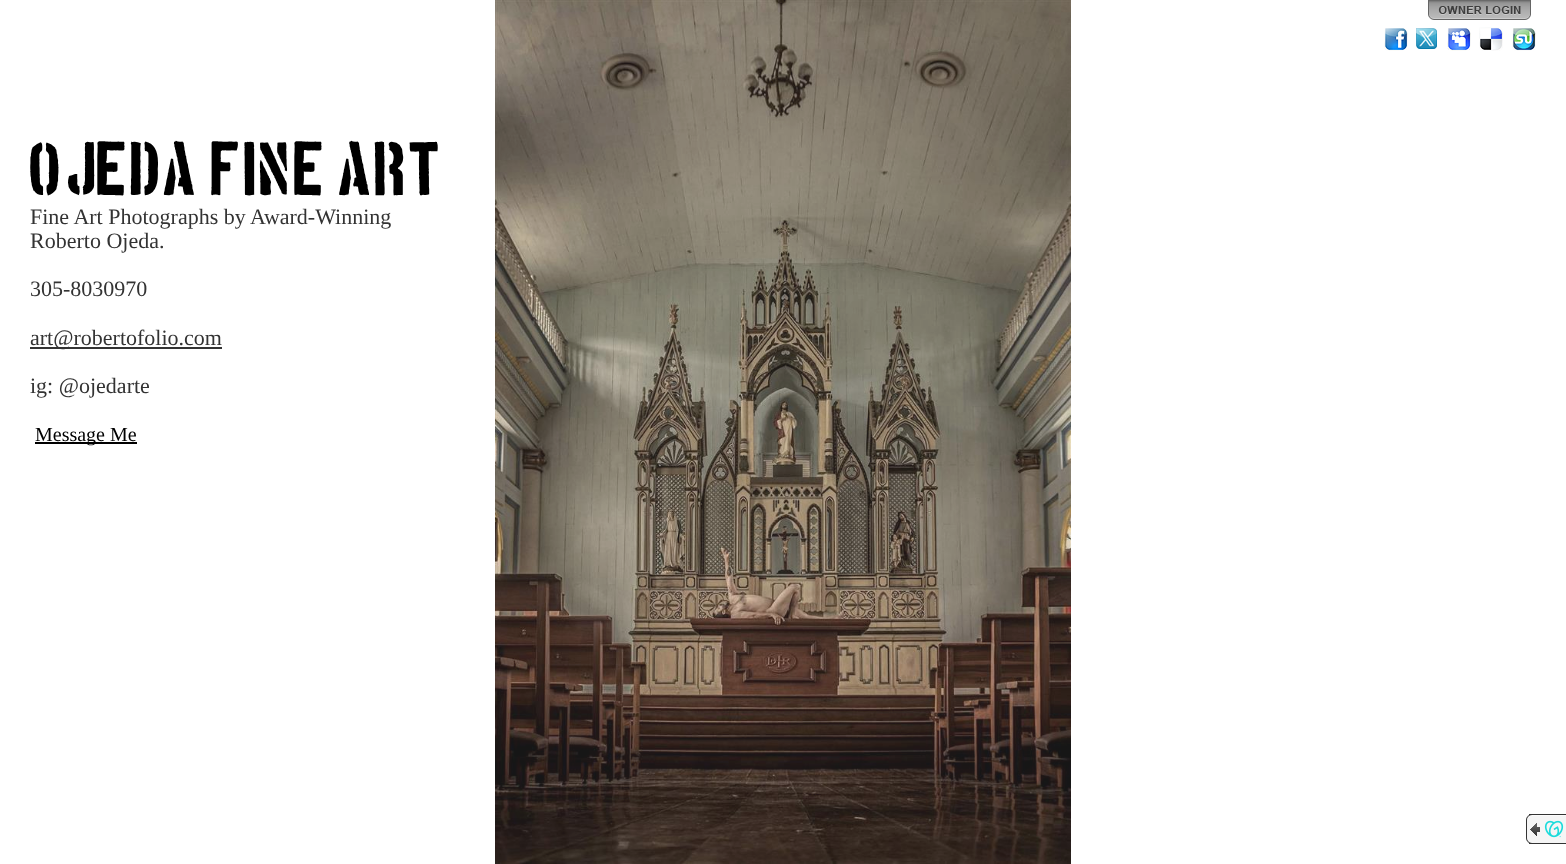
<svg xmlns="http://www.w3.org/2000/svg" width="1566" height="864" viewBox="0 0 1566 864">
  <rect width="100%" height="100%" fill="#fff"/>
  <image x="1428" y="0" width="103" height="20" href="img/1.png"/>
  <image x="1384" y="28" width="24" height="23" href="img/2.png"/>
  <image x="1416" y="28" width="21" height="21" href="img/3.png"/>
  <image x="1447" y="28" width="24" height="23" href="img/4.png"/>
  <image x="1479" y="27" width="24" height="24" href="img/5.png"/>
  <image x="1512" y="28" width="24" height="23" href="img/6.png"/>
  <path d="M30 347h192v2H30z" fill="#333"/>
  <path d="M35 442h102v2H35z" fill="#000"/>
  <image x="1529" y="814" width="37" height="30" href="img/7.png"/>
  <image x="1526" y="815" width="14" height="28" href="img/8.png"/>
  <image x="1544" y="820" width="20" height="18" href="img/9.png"/>
  <image x="495" y="0" width="576" height="864" href="img/10.png"/>
  <text x="30" y="195" font-family="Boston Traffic" font-size="60" fill="#000">Ojeda Fine Art</text>
  <g font-family="Liberation Serif" font-size="22" fill="#333">
    <text x="30" y="224">Fine Art Photographs by Award-Winning</text>
    <text x="30" y="248">Roberto Ojeda.</text>
    <text x="30" y="296">305-8030970</text>
    <text x="30" y="345">art@robertofolio.com</text>
    <text x="30" y="393">ig: @ojedarte</text>
  </g>
  <text x="35" y="441" font-family="Liberation Serif" font-size="20" fill="#000">Message Me</text>
</svg>
